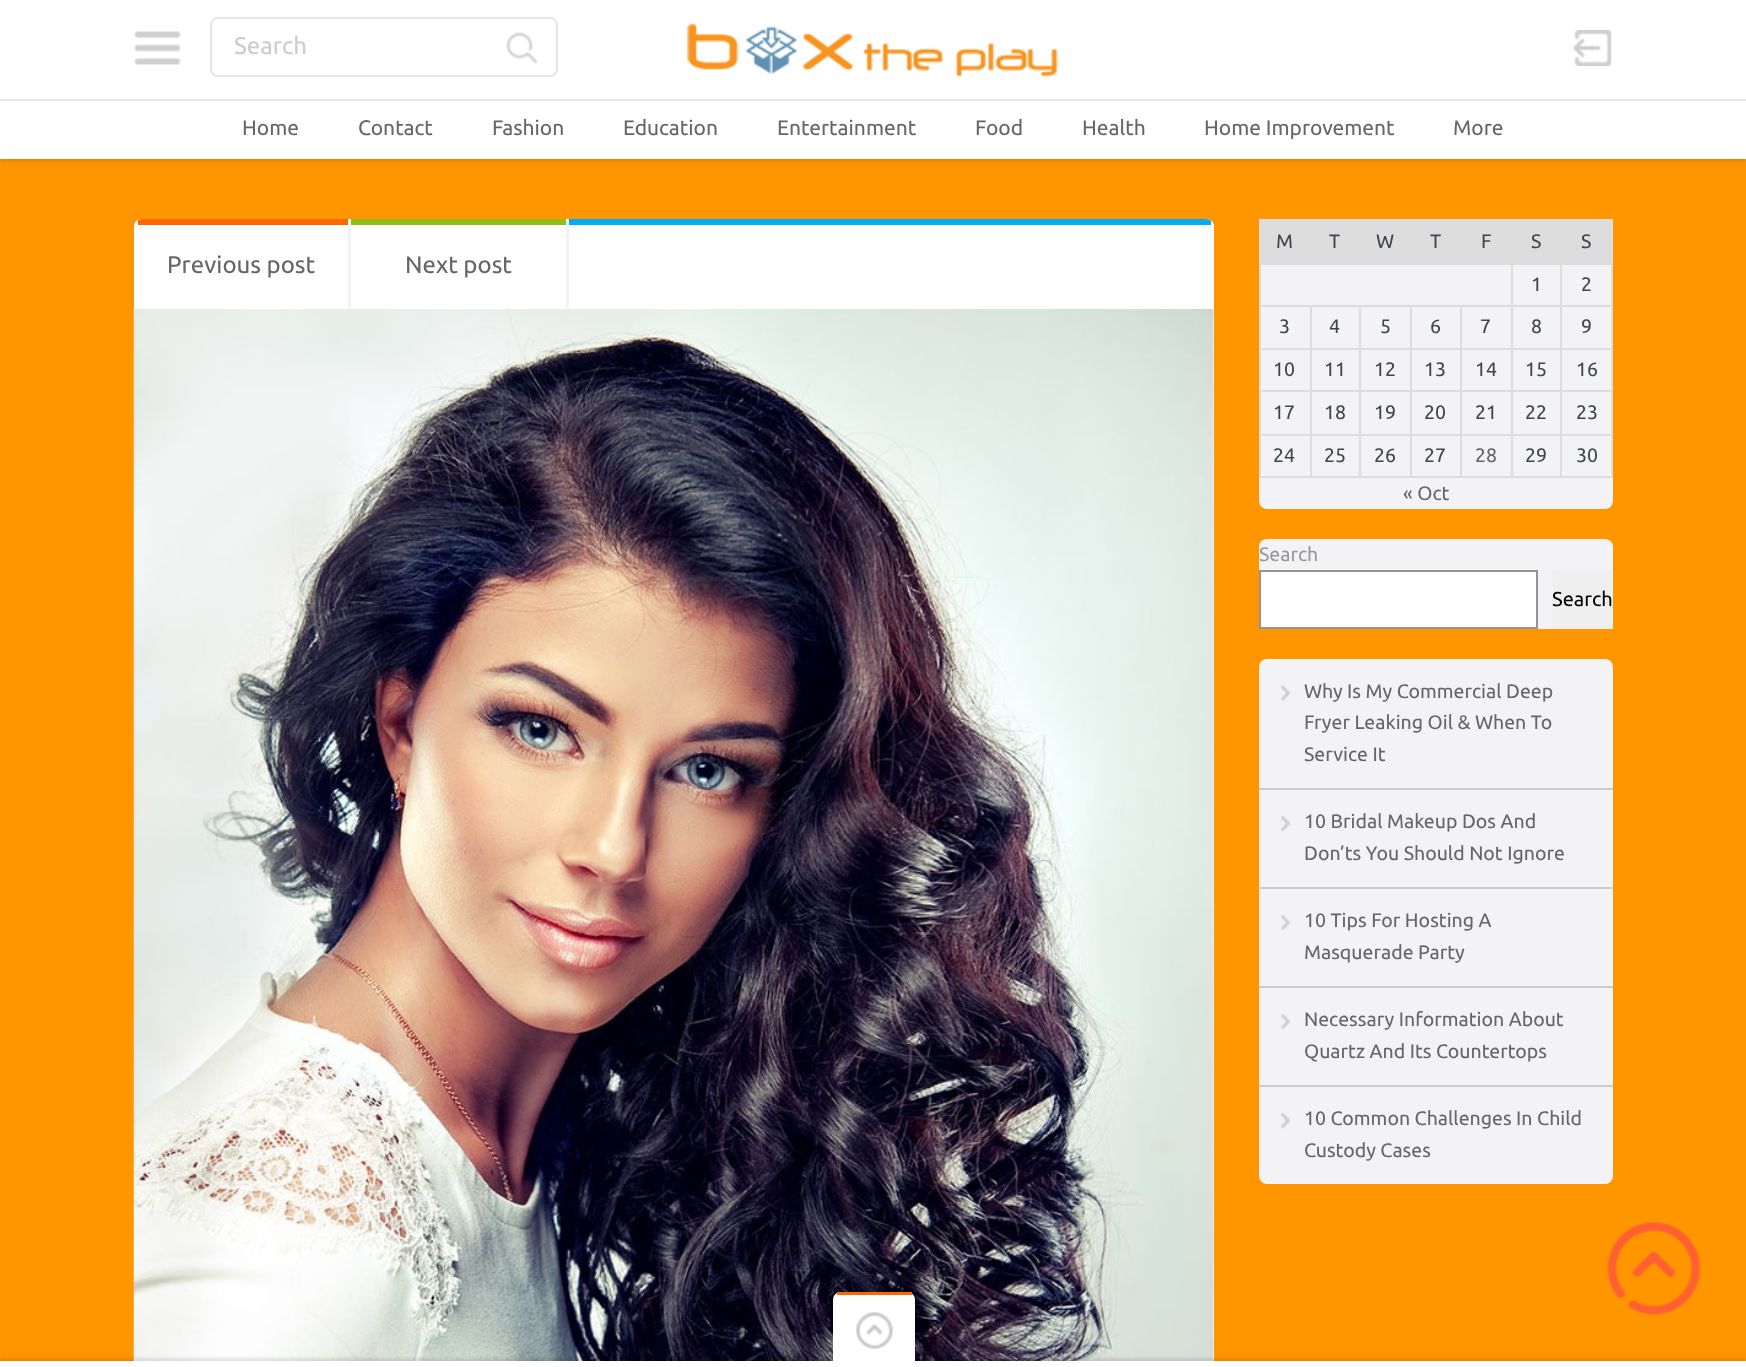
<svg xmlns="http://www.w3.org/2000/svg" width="1746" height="1367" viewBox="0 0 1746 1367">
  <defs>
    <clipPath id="clip1"><rect x="134" y="219" width="1080" height="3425" rx="8"/></clipPath>
  </defs>
  <rect width="100%" height="100%" fill="#ff9600"/>
  <path d="M0 3h1746v159H0z" fill="#0000001a" filter="blur(1.5px)"/>
  <path d="M0 0h1746v159H0z" fill="#fff"/>
  <image x="134" y="31" width="47" height="34" href="img/1.png"/>
  <rect x="211" y="18" width="346" height="58" rx="7" fill="none" stroke="#e5e5e5" stroke-width="2"/>
  <image x="506" y="32" width="32" height="32" href="img/2.png"/>
  <image x="686" y="23" width="372" height="54" href="img/3.png"/>
  <image x="1573" y="30" width="39" height="36" href="img/4.png"/>
  <path d="M0 99h1746v2H0z" fill="#e5e7ea"/>
  <rect x="134" y="219" width="1080" height="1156" rx="8" fill="#f3f3f5"/>
  <path d="M142 219H1206C1210.5 219 1214 222.5 1214 227V309H134V227C134 222.5 137.5 219 142 219Z" fill="#fff"/>
  <g clip-path="url(#clip1)">
    <path d="M569 219h642v6H569z" fill="#00aeef"/>
  </g>
  <path d="M348 219h3v90H348z" fill="#f3f3f5"/>
  <g clip-path="url(#clip1)">
    <path d="M138 219h210v6H138z" fill="#ff6700"/>
  </g>
  <path d="M566 219h3v90H566z" fill="#f3f3f5"/>
  <path d="M351 219h215v6H351z" fill="#8fbe1b"/>
  <image x="133" y="309" width="1081" height="1052" href="img/5.png"/>
  <rect x="1259" y="219" width="354" height="290" rx="8" fill="#f3f3f5"/>
  <path d="M1261 221h352v42H1261z" fill="#ddd"/>
  <path d="M1259 219h354v2H1259z" fill="#ddd"/>
  <path d="M1560 263h53v2H1560z" fill="#ddd"/>
  <path d="M1560 305h53v2H1560z" fill="#ddd"/>
  <path d="M1560 348h53v2H1560z" fill="#ddd"/>
  <path d="M1560 390h53v2H1560z" fill="#ddd"/>
  <path d="M1560 434h53v2H1560z" fill="#ddd"/>
  <path d="M1611 434h2v43H1611z" fill="#ddd"/>
  <path d="M1560 476h53v2H1560z" fill="#ddd"/>
  <path d="M1560 434h2v43H1560z" fill="#ddd"/>
  <path d="M1511 434h51v2H1511z" fill="#ddd"/>
  <path d="M1560 390h2v45H1560z" fill="#ddd"/>
  <path d="M1511 390h51v2H1511z" fill="#ddd"/>
  <path d="M1560 348h2v44H1560z" fill="#ddd"/>
  <path d="M1511 348h51v2H1511z" fill="#ddd"/>
  <path d="M1560 305h2v45H1560z" fill="#ddd"/>
  <path d="M1511 305h51v2H1511z" fill="#ddd"/>
  <path d="M1560 263h2v43H1560z" fill="#ddd"/>
  <path d="M1511 263h51v2H1511z" fill="#ddd"/>
  <path d="M1511 476h51v2H1511z" fill="#ddd"/>
  <path d="M1511 434h2v43H1511z" fill="#ddd"/>
  <path d="M1460 434h52v2H1460z" fill="#ddd"/>
  <path d="M1511 390h2v45H1511z" fill="#ddd"/>
  <path d="M1460 390h52v2H1460z" fill="#ddd"/>
  <path d="M1511 348h2v44H1511z" fill="#ddd"/>
  <path d="M1460 348h52v2H1460z" fill="#ddd"/>
  <path d="M1511 305h2v45H1511z" fill="#ddd"/>
  <path d="M1460 305h52v2H1460z" fill="#ddd"/>
  <path d="M1511 263h2v43H1511z" fill="#ddd"/>
  <path d="M1259 263h253v2H1259z" fill="#ddd"/>
  <path d="M1460 476h52v2H1460z" fill="#ddd"/>
  <path d="M1460 434h2v43H1460z" fill="#ddd"/>
  <path d="M1410 434h51v2H1410z" fill="#ddd"/>
  <path d="M1460 390h2v45H1460z" fill="#ddd"/>
  <path d="M1410 390h51v2H1410z" fill="#ddd"/>
  <path d="M1460 348h2v44H1460z" fill="#ddd"/>
  <path d="M1410 348h51v2H1410z" fill="#ddd"/>
  <path d="M1460 305h2v45H1460z" fill="#ddd"/>
  <path d="M1410 305h51v2H1410z" fill="#ddd"/>
  <path d="M1410 476h51v2H1410z" fill="#ddd"/>
  <path d="M1410 434h2v43H1410z" fill="#ddd"/>
  <path d="M1359 434h53v2H1359z" fill="#ddd"/>
  <path d="M1410 390h2v45H1410z" fill="#ddd"/>
  <path d="M1359 390h53v2H1359z" fill="#ddd"/>
  <path d="M1410 348h2v44H1410z" fill="#ddd"/>
  <path d="M1359 348h53v2H1359z" fill="#ddd"/>
  <path d="M1410 305h2v45H1410z" fill="#ddd"/>
  <path d="M1359 305h53v2H1359z" fill="#ddd"/>
  <path d="M1359 476h53v2H1359z" fill="#ddd"/>
  <path d="M1359 434h2v43H1359z" fill="#ddd"/>
  <path d="M1310 434h51v2H1310z" fill="#ddd"/>
  <path d="M1359 390h2v45H1359z" fill="#ddd"/>
  <path d="M1310 390h51v2H1310z" fill="#ddd"/>
  <path d="M1359 348h2v44H1359z" fill="#ddd"/>
  <path d="M1310 348h51v2H1310z" fill="#ddd"/>
  <path d="M1359 305h2v45H1359z" fill="#ddd"/>
  <path d="M1310 305h51v2H1310z" fill="#ddd"/>
  <path d="M1310 476h51v2H1310z" fill="#ddd"/>
  <path d="M1310 434h2v43H1310z" fill="#ddd"/>
  <path d="M1259 434h52v2H1259z" fill="#ddd"/>
  <path d="M1310 390h2v45H1310z" fill="#ddd"/>
  <path d="M1259 390h52v2H1259z" fill="#ddd"/>
  <path d="M1310 348h2v44H1310z" fill="#ddd"/>
  <path d="M1259 348h52v2H1259z" fill="#ddd"/>
  <path d="M1310 305h2v45H1310z" fill="#ddd"/>
  <path d="M1259 305h52v2H1259z" fill="#ddd"/>
  <path d="M1259 476h52v2H1259z" fill="#ddd"/>
  <path d="M1259 434h2v43H1259z" fill="#ddd"/>
  <path d="M1259 390h2v45H1259z" fill="#ddd"/>
  <path d="M1259 348h2v44H1259z" fill="#ddd"/>
  <path d="M1259 305h2v45H1259z" fill="#ddd"/>
  <path d="M1259 263h2v43H1259z" fill="#ddd"/>
  <path d="M1259 219h2v45H1259z" fill="#ddd"/>
  <path d="M1611 390h2v45H1611z" fill="#ddd"/>
  <path d="M1611 348h2v44H1611z" fill="#ddd"/>
  <path d="M1611 305h2v45H1611z" fill="#ddd"/>
  <path d="M1611 263h2v43H1611z" fill="#ddd"/>
  <rect x="1259" y="539" width="354" height="90" rx="8" fill="#f3f3f5"/>
  <path d="M1260 571h277v57H1260z" fill="#fff" stroke="#949494" stroke-width="2"/>
  <path d="M1553 570h60v59H1553z" fill="#efefef"/>
  <rect x="1259" y="659" width="354" height="525" rx="8" fill="#f3f3f5"/>
  <image x="1281" y="685" width="9" height="16" href="img/6.png"/>
  <path d="M1259 788h354v2H1259z" fill="#ccc"/>
  <image x="1281" y="816" width="9" height="16" href="img/7.png"/>
  <path d="M1259 887h354v2H1259z" fill="#ccc"/>
  <image x="1281" y="915" width="9" height="16" href="img/7.png"/>
  <path d="M1259 986h354v2H1259z" fill="#ccc"/>
  <image x="1281" y="1014" width="9" height="16" href="img/7.png"/>
  <path d="M1259 1085h354v2H1259z" fill="#ccc"/>
  <image x="1281" y="1113" width="9" height="16" href="img/7.png"/>
  <path d="M0 1358h1746v7H0z" fill="#0000001a" filter="blur(1.5px)"/>
  <image x="1607" y="1221" width="94" height="95" href="img/8.png"/>
  <path d="M0 1361h1746v6H0z" fill="#fff"/>
  <rect x="833" y="1289" width="82" height="69" rx="8" fill="#0000001a" filter="blur(1.5px)"/>
  <path d="M841 1292H907C911.5 1292 915 1295.5 915 1300V1361H833V1300C833 1295.5 836.5 1292 841 1292Z" fill="#fff"/>
  <image x="856" y="1312" width="37" height="38" href="img/9.png"/>
  <path d="M837 1292h75v3H837z" fill="#ff6700"/>
  <text x="234" y="54" font-family="Ubuntu" font-size="24" fill="#ccc">Search</text>
  <g font-family="Ubuntu" font-size="21" fill="#666">
    <text x="242" y="135">Home</text>
    <text x="358" y="135">Contact</text>
    <text x="492" y="135">Fashion</text>
    <text x="623" y="135">Education</text>
    <text x="777" y="135">Entertainment</text>
    <text x="975" y="135">Food</text>
    <text x="1082" y="135">Health</text>
    <text x="1204" y="135">Home Improvement</text>
    <text x="1453" y="135">More</text>
  </g>
  <g font-family="Ubuntu" font-size="24" fill="#666">
    <text x="167" y="273">Previous post</text>
    <text x="405" y="273">Next post</text>
  </g>
  <g font-family="Ubuntu" font-size="19.5" fill="#40464d">
    <text x="1276" y="248">M</text>
    <text x="1329" y="248">T</text>
    <text x="1376" y="248">W</text>
    <text x="1430" y="248">T</text>
    <text x="1481" y="248">F</text>
    <text x="1531" y="248">S</text>
    <text x="1581" y="248">S</text>
    <text x="1531" y="291">1</text>
    <text x="1581" y="291">2</text>
    <text x="1279" y="333">3</text>
    <text x="1329" y="333">4</text>
    <text x="1380" y="333">5</text>
    <text x="1430" y="333">6</text>
    <text x="1480" y="333">7</text>
    <text x="1531" y="333">8</text>
    <text x="1581" y="333">9</text>
    <text x="1273" y="376">10</text>
    <text x="1324" y="376">11</text>
    <text x="1374" y="376">12</text>
    <text x="1424" y="376">13</text>
    <text x="1475" y="376">14</text>
    <text x="1525" y="376">15</text>
    <text x="1576" y="376">16</text>
    <text x="1273" y="419">17</text>
    <text x="1324" y="419">18</text>
    <text x="1374" y="419">19</text>
    <text x="1424" y="419">20</text>
    <text x="1475" y="419">21</text>
    <text x="1525" y="419">22</text>
    <text x="1576" y="419">23</text>
    <text x="1273" y="462">24</text>
    <text x="1324" y="462">25</text>
    <text x="1374" y="462">26</text>
    <text x="1424" y="462">27</text>
  </g>
  <text x="1475" y="462" font-family="Ubuntu" font-size="19.5" fill="#666">28</text>
  <g font-family="Ubuntu" font-size="19.5" fill="#40464d">
    <text x="1525" y="462">29</text>
    <text x="1576" y="462">30</text>
  </g>
  <text x="1403" y="500" font-family="Ubuntu" font-size="19.5" fill="#666">« Oct</text>
  <text x="1259" y="561" font-family="Ubuntu" font-size="19.5" fill="#999">Search</text>
  <text x="1552" y="606" font-family="Ubuntu" font-size="20" fill="#000">Search</text>
  <g font-family="Ubuntu" font-size="19.5" fill="#666">
    <text x="1304" y="698">Why Is My Commercial Deep</text>
    <text x="1304" y="729">Fryer Leaking Oil &amp; When To</text>
    <text x="1304" y="761">Service It</text>
    <text x="1304" y="828">10 Bridal Makeup Dos And</text>
    <text x="1304" y="860">Don’ts You Should Not Ignore</text>
    <text x="1304" y="927">10 Tips For Hosting A</text>
    <text x="1304" y="959">Masquerade Party</text>
    <text x="1304" y="1026">Necessary Information About</text>
    <text x="1304" y="1058">Quartz And Its Countertops</text>
    <text x="1304" y="1125">10 Common Challenges In Child</text>
    <text x="1304" y="1157">Custody Cases</text>
  </g>
</svg>
